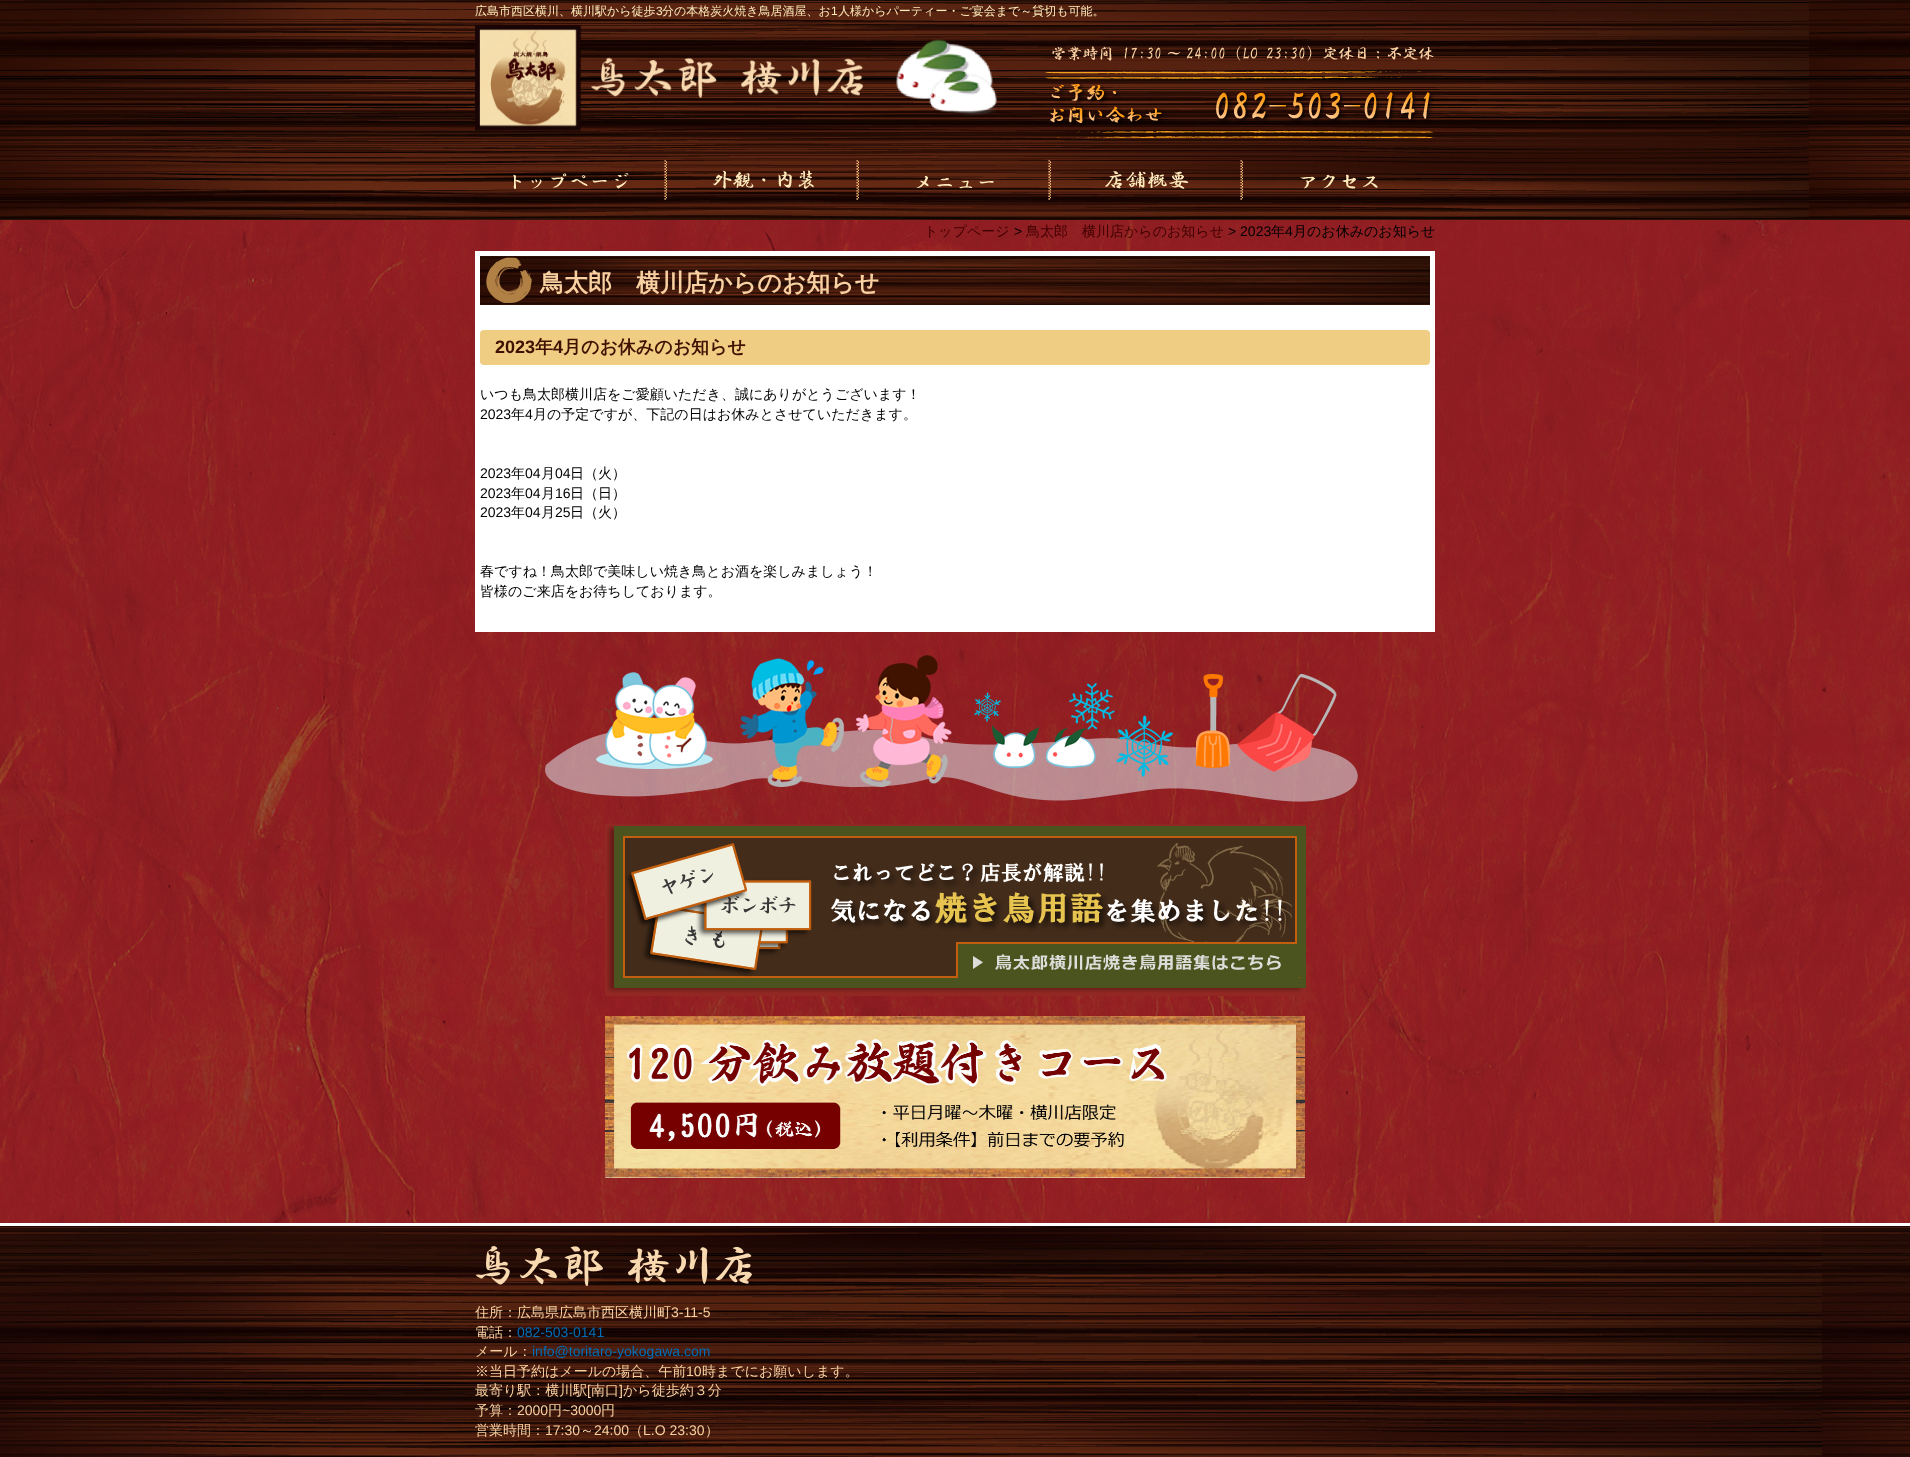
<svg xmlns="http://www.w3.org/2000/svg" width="1910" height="1457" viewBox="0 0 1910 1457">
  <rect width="100%" height="100%" fill="#fff"/>
  <image x="0" y="0" width="1910" height="220" href="img/1.png"/>
  <image x="475" y="24" width="525" height="107" href="img/2.png"/>
  <image x="1043" y="45" width="392" height="93" href="img/3.png"/>
  <image x="664" y="160" width="3" height="40" href="img/4.png"/>
  <image x="513" y="173" width="116" height="16" href="img/5.png"/>
  <image x="856" y="160" width="3" height="40" href="img/6.png"/>
  <image x="713" y="170" width="101" height="19" href="img/7.png"/>
  <image x="1048" y="160" width="3" height="40" href="img/8.png"/>
  <image x="916" y="176" width="78" height="13" href="img/9.png"/>
  <image x="1240" y="160" width="3" height="40" href="img/10.png"/>
  <image x="1105" y="171" width="84" height="18" href="img/11.png"/>
  <image x="1300" y="174" width="78" height="15" href="img/12.png"/>
  <image x="0" y="220" width="1910" height="1003" href="img/13.png"/>
  <path d="M475 251h960v381H475z" fill="#fff"/>
  <image x="480" y="256" width="950" height="49" href="img/14.png"/>
  <rect x="480" y="330" width="950" height="35" rx="4" fill="#efce83"/>
  <image x="545" y="655" width="813" height="147" href="img/15.png"/>
  <image x="605" y="824" width="701" height="172" href="img/16.png"/>
  <image x="605" y="1016" width="700" height="162" href="img/17.png"/>
  <image x="0" y="1226" width="1910" height="231" href="img/18.png"/>
  <image x="475" y="1246" width="277" height="40" href="img/19.png"/>
  <text x="475" y="15" font-family="WenQuanYi Zen Hei" font-size="12" font-weight="500" fill="#ffeaba">広島市西区横川、横川駅から徒歩</text>
  <text x="656" y="15" font-family="Liberation Sans" font-size="12" fill="#ffeaba">3</text>
  <text x="662" y="15" font-family="WenQuanYi Zen Hei" font-size="12" font-weight="500" fill="#ffeaba">分の本格炭火焼き鳥居酒屋、お</text>
  <text x="831" y="15" font-family="Liberation Sans" font-size="12" fill="#ffeaba">1</text>
  <text x="838" y="15" font-family="WenQuanYi Zen Hei" font-size="12" font-weight="500" fill="#ffeaba">人様からパーティー・ご宴会まで～貸切も可能。</text>
  <text x="924" y="236" font-family="WenQuanYi Zen Hei" font-size="14" font-weight="500" fill="#400000">トップページ</text>
  <text x="1014" y="236" font-family="Liberation Sans" font-size="14" fill="#000">&gt;</text>
  <text x="1026" y="236" font-family="WenQuanYi Zen Hei" font-size="14" font-weight="500" fill="#400000">鳥太郎　横川店からのお知らせ</text>
  <text x="1228" y="236" font-family="Liberation Sans" font-size="14" fill="#000">&gt; 2023</text>
  <text x="1271" y="236" font-family="WenQuanYi Zen Hei" font-size="14" font-weight="500" fill="#000">年</text>
  <text x="1285" y="236" font-family="Liberation Sans" font-size="14" fill="#000">4</text>
  <text x="1293" y="236" font-family="WenQuanYi Zen Hei" font-size="14" font-weight="500" fill="#000">月のお休みのお知らせ</text>
  <text x="540" y="291" font-family="WenQuanYi Zen Hei" font-size="24" font-weight="bold" fill="#f9d0a1">鳥太郎　横川店からのお知らせ</text>
  <text x="495" y="353" font-family="Liberation Sans" font-size="18" font-weight="bold" fill="#401000">2023</text>
  <text x="535" y="353" font-family="WenQuanYi Zen Hei" font-size="18" font-weight="bold" fill="#401000">年</text>
  <text x="553" y="353" font-family="Liberation Sans" font-size="18" font-weight="bold" fill="#401000">4</text>
  <text x="563" y="353" font-family="WenQuanYi Zen Hei" font-size="18" font-weight="bold" fill="#401000">月のお休みのお知らせ</text>
  <text x="480" y="399" font-family="WenQuanYi Zen Hei" font-size="14" font-weight="500" fill="#000">いつも鳥太郎横川店をご愛顧いただき、誠にありがとうございます！</text>
  <text x="480" y="419" font-family="Liberation Sans" font-size="14" fill="#000">2023</text>
  <text x="511" y="419" font-family="WenQuanYi Zen Hei" font-size="14" font-weight="500" fill="#000">年</text>
  <text x="525" y="419" font-family="Liberation Sans" font-size="14" fill="#000">4</text>
  <text x="533" y="419" font-family="WenQuanYi Zen Hei" font-size="14" font-weight="500" fill="#000">月の予定ですが、下記の日はお休みとさせていただきます。</text>
  <text x="480" y="478" font-family="Liberation Sans" font-size="14" fill="#000">2023</text>
  <text x="511" y="478" font-family="WenQuanYi Zen Hei" font-size="14" font-weight="500" fill="#000">年</text>
  <text x="525" y="478" font-family="Liberation Sans" font-size="14" fill="#000">04</text>
  <text x="541" y="478" font-family="WenQuanYi Zen Hei" font-size="14" font-weight="500" fill="#000">月</text>
  <text x="555" y="478" font-family="Liberation Sans" font-size="14" fill="#000">04</text>
  <text x="570" y="478" font-family="WenQuanYi Zen Hei" font-size="14" font-weight="500" fill="#000">日（火）</text>
  <text x="480" y="498" font-family="Liberation Sans" font-size="14" fill="#000">2023</text>
  <text x="511" y="498" font-family="WenQuanYi Zen Hei" font-size="14" font-weight="500" fill="#000">年</text>
  <text x="525" y="498" font-family="Liberation Sans" font-size="14" fill="#000">04</text>
  <text x="541" y="498" font-family="WenQuanYi Zen Hei" font-size="14" font-weight="500" fill="#000">月</text>
  <text x="555" y="498" font-family="Liberation Sans" font-size="14" fill="#000">16</text>
  <text x="570" y="498" font-family="WenQuanYi Zen Hei" font-size="14" font-weight="500" fill="#000">日（日）</text>
  <text x="480" y="517" font-family="Liberation Sans" font-size="14" fill="#000">2023</text>
  <text x="511" y="517" font-family="WenQuanYi Zen Hei" font-size="14" font-weight="500" fill="#000">年</text>
  <text x="525" y="517" font-family="Liberation Sans" font-size="14" fill="#000">04</text>
  <text x="541" y="517" font-family="WenQuanYi Zen Hei" font-size="14" font-weight="500" fill="#000">月</text>
  <text x="555" y="517" font-family="Liberation Sans" font-size="14" fill="#000">25</text>
  <g font-family="WenQuanYi Zen Hei" font-size="14" font-weight="500" fill="#000">
    <text x="570" y="517">日（火）</text>
    <text x="480" y="576">春ですね！鳥太郎で美味しい焼き鳥とお酒を楽しみましょう！</text>
    <text x="480" y="596">皆様のご来店をお待ちしております。</text>
  </g>
  <text x="475" y="1317" font-family="WenQuanYi Zen Hei" font-size="14" font-weight="500" fill="#f9d0a1">住所：広島県広島市西区横川町</text>
  <text x="671" y="1317" font-family="Liberation Sans" font-size="14" fill="#f9d0a1">3-11-5</text>
  <text x="475" y="1337" font-family="WenQuanYi Zen Hei" font-size="14" font-weight="500" fill="#f9d0a1">電話：</text>
  <text x="517" y="1337" font-family="Liberation Sans" font-size="14" fill="#026db7">082-503-0141</text>
  <text x="475" y="1356" font-family="WenQuanYi Zen Hei" font-size="14" font-weight="500" fill="#f9d0a1">メール：</text>
  <text x="532" y="1356" font-family="Liberation Sans" font-size="14" fill="#026db7">info@toritaro-yokogawa.com</text>
  <text x="475" y="1376" font-family="WenQuanYi Zen Hei" font-size="14" font-weight="500" fill="#f9d0a1">※当日予約はメールの場合、午前</text>
  <text x="686" y="1376" font-family="Liberation Sans" font-size="14" fill="#f9d0a1">10</text>
  <g font-family="WenQuanYi Zen Hei" font-size="14" font-weight="500" fill="#f9d0a1">
    <text x="702" y="1376">時までにお願いします。</text>
    <text x="475" y="1395">最寄り駅：横川駅</text>
  </g>
  <text x="587" y="1395" font-family="Liberation Sans" font-size="14" fill="#f9d0a1">[</text>
  <text x="591" y="1395" font-family="WenQuanYi Zen Hei" font-size="14" font-weight="500" fill="#f9d0a1">南口</text>
  <text x="619" y="1395" font-family="Liberation Sans" font-size="14" fill="#f9d0a1">]</text>
  <g font-family="WenQuanYi Zen Hei" font-size="14" font-weight="500" fill="#f9d0a1">
    <text x="623" y="1395">から徒歩約３分</text>
    <text x="475" y="1415">予算：</text>
  </g>
  <text x="517" y="1415" font-family="Liberation Sans" font-size="14" fill="#f9d0a1">2000</text>
  <text x="548" y="1415" font-family="WenQuanYi Zen Hei" font-size="14" font-weight="500" fill="#f9d0a1">円</text>
  <text x="562" y="1415" font-family="Liberation Sans" font-size="14" fill="#f9d0a1">~3000</text>
  <g font-family="WenQuanYi Zen Hei" font-size="14" font-weight="500" fill="#f9d0a1">
    <text x="601" y="1415">円</text>
    <text x="475" y="1435">営業時間：</text>
  </g>
  <text x="545" y="1435" font-family="Liberation Sans" font-size="14" fill="#f9d0a1">17:30</text>
  <text x="580" y="1435" font-family="WenQuanYi Zen Hei" font-size="14" font-weight="500" fill="#f9d0a1">～</text>
  <text x="594" y="1435" font-family="Liberation Sans" font-size="14" fill="#f9d0a1">24:00</text>
  <text x="629" y="1435" font-family="WenQuanYi Zen Hei" font-size="14" font-weight="500" fill="#f9d0a1">（</text>
  <text x="643" y="1435" font-family="Liberation Sans" font-size="14" fill="#f9d0a1">L.O 23:30</text>
  <text x="705" y="1435" font-family="WenQuanYi Zen Hei" font-size="14" font-weight="500" fill="#f9d0a1">）</text>
</svg>
